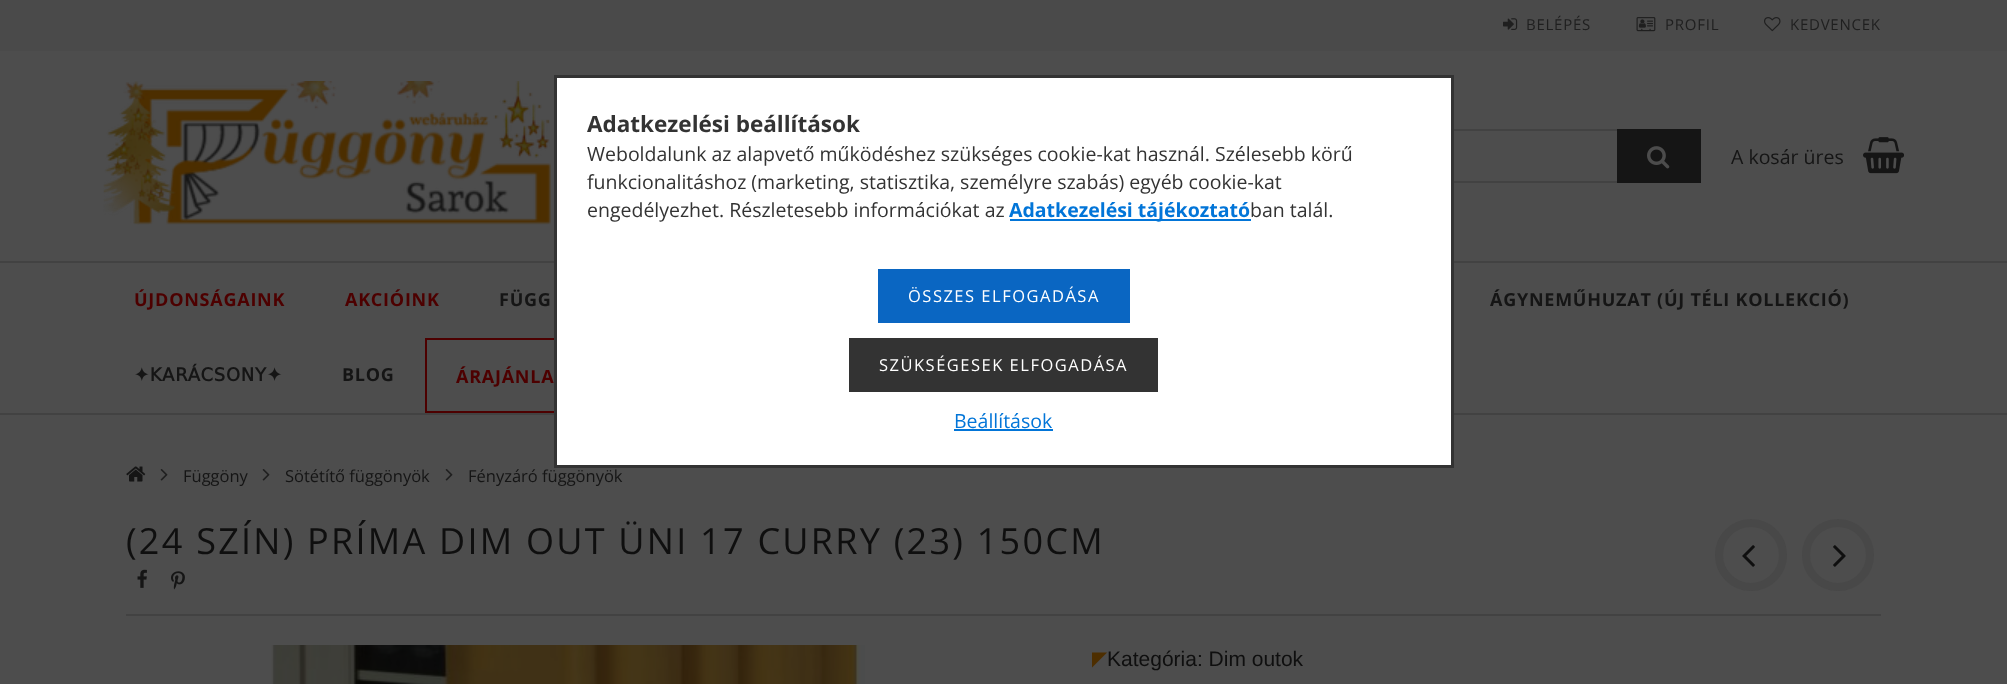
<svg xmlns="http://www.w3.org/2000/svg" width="2007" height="684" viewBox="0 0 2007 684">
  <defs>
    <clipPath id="clip1"><path d="M1092 645h789v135H1092z"/></clipPath>
  </defs>
  <rect width="100%" height="100%" fill="#4d4d4d"/>
  <path d="M0 0h2007v51H0z" fill="#4a4a4a"/>
  <image x="1503" y="18" width="15" height="12" href="img/1.png"/>
  <image x="1636" y="17" width="20" height="15" href="img/2.png"/>
  <image x="1764" y="17" width="17" height="15" href="img/3.png"/>
  <image x="103" y="81" width="448" height="144" href="img/4.png"/>
  <path d="M1318 130h382v52H1318z" fill="none" stroke="#424242" stroke-width="2"/>
  <path d="M1617 129h84v54H1617z" fill="#151515"/>
  <image x="1647" y="146" width="23" height="23" href="img/5.png"/>
  <image x="1863" y="137" width="41" height="37" href="img/6.png"/>
  <path d="M0 261h2007v2H0z" fill="#424242"/>
  <path d="M0 413h2007v2H0z" fill="#424242"/>
  <path d="M426 339h244v73H426z" fill="none" stroke="#4d0000" stroke-width="2"/>
  <image x="126" y="466" width="20" height="16" href="img/7.png"/>
  <image x="160" y="469" width="8" height="12" href="img/8.png"/>
  <image x="262" y="469" width="8" height="12" href="img/8.png"/>
  <image x="445" y="469" width="8" height="12" href="img/8.png"/>
  <path d="M126 614h1755v2H126z" fill="#424242"/>
  <image x="137" y="569" width="10" height="19" href="img/9.png"/>
  <image x="171" y="571" width="14" height="19" href="img/10.png"/>
  <circle cx="1751" cy="555" r="32" fill="none" stroke="#484848" stroke-width="8"/>
  <image x="1742" y="545" width="13" height="22" href="img/11.png"/>
  <circle cx="1838" cy="555" r="32" fill="none" stroke="#484848" stroke-width="8"/>
  <image x="1833" y="545" width="13" height="22" href="img/12.png"/>
  <image x="271" y="645" width="594" height="39" href="img/13.png"/>
  <path d="M555.5 76.5h897v390H555.5z" fill="#fff" stroke="#333" stroke-width="3"/>
  <path d="M1010 219h241v2H1010z" fill="#0275d8"/>
  <path d="M878 269h252v54H878z" fill="#0a66c2"/>
  <path d="M849 338h309v54H849z" fill="#333"/>
  <path d="M954 429h99v2H954z" fill="#0275d8"/>
  <g font-family="Open Sans" font-size="15" letter-spacing="0.75" fill="#1f1f1f">
    <text x="1526" y="30">BELÉPÉS</text>
    <text x="1665" y="30">PROFIL</text>
    <text x="1790" y="30">KEDVENCEK</text>
  </g>
  <text x="1731" y="164" font-family="Open Sans" font-size="19.5" fill="#151515">A kosár üres</text>
  <g font-family="Open Sans" font-size="18" font-weight="bold" letter-spacing="0.75" fill="#4d0000">
    <text x="134" y="306">ÚJDONSÁGAINK</text>
    <text x="345" y="306">AKCIÓINK</text>
  </g>
  <g font-family="Open Sans" font-size="18" font-weight="bold" letter-spacing="0.75" fill="#151515">
    <text x="499" y="306">FÜGG</text>
    <text x="1490" y="306">ÁGYNEMŰHUZAT (ÚJ TÉLI KOLLEKCIÓ)</text>
  </g>
  <text x="134" y="381" font-family="DejaVu Sans" font-size="18" font-weight="bold" letter-spacing="0.75" fill="#151515">✦KARÁCSONY✦</text>
  <text x="342" y="381" font-family="Open Sans" font-size="18" font-weight="bold" letter-spacing="0.75" fill="#151515">BLOG</text>
  <text x="456" y="383" font-family="Open Sans" font-size="18" font-weight="bold" letter-spacing="0.75" fill="#4d0000">ÁRAJÁNLA</text>
  <g font-family="Open Sans" font-size="16.5" fill="#151515">
    <text x="183" y="482">Függöny</text>
    <text x="285" y="482">Sötétítő függönyök</text>
    <text x="468" y="482">Fényzáró függönyök</text>
  </g>
  <text x="126" y="554" font-family="Open Sans" font-size="36" letter-spacing="2.25" fill="#0f0f0f">(24 SZÍN) PRÍMA DIM OUT ÜNI 17 CURRY (23) 150CM</text>
  <g clip-path="url(#clip1)">
    <text x="1091" y="666" font-family="DejaVu Sans" font-size="21" fill="#4d2e00">◤</text>
  </g>
  <text x="1107" y="666" font-family="Liberation Sans" font-size="21" fill="#0f0f0f">Kategória: Dim outok</text>
  <text x="587" y="132" font-family="Open Sans" font-size="22.5" font-weight="bold" fill="#333">Adatkezelési beállítások</text>
  <g font-family="Open Sans" font-size="19.5" fill="#333">
    <text x="587" y="161">Weboldalunk az alapvető működéshez szükséges cookie-kat használ. Szélesebb körű</text>
    <text x="587" y="189">funkcionalitáshoz (marketing, statisztika, személyre szabás) egyéb cookie-kat</text>
    <text x="587" y="217">engedélyezhet. Részletesebb információkat az</text>
  </g>
  <text x="1009" y="217" font-family="Open Sans" font-size="19.5" font-weight="bold" fill="#0275d8">Adatkezelési tájékoztató</text>
  <text x="1250" y="217" font-family="Open Sans" font-size="19.5" fill="#333">ban talál.</text>
  <g font-family="Open Sans" font-size="16.5" letter-spacing="1.5" fill="#fff">
    <text x="908" y="302">ÖSSZES ELFOGADÁSA</text>
    <text x="879" y="371">SZÜKSÉGESEK ELFOGADÁSA</text>
  </g>
  <text x="954" y="428" font-family="Open Sans" font-size="19.5" fill="#0275d8">Beállítások</text>
</svg>
